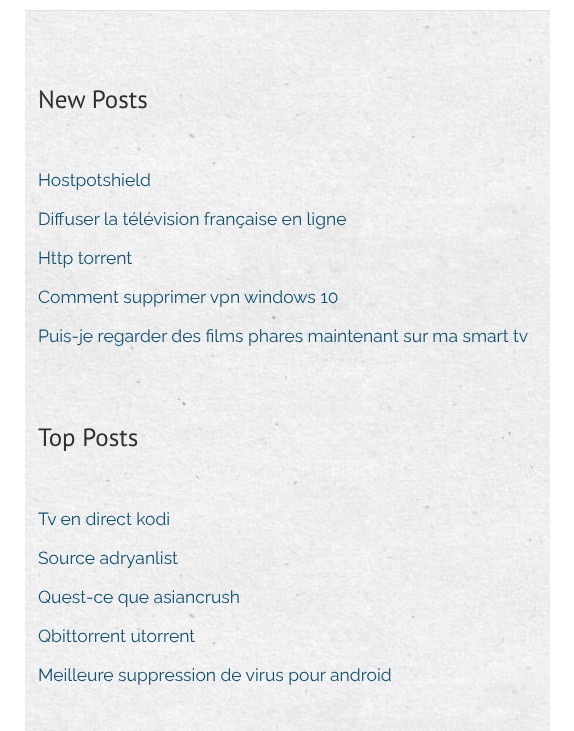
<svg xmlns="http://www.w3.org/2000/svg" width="574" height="731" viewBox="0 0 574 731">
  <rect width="100%" height="100%" fill="#fff"/>
  <image x="25" y="11" width="525" height="720" href="img/1.png"/>
  <path d="M25 10h525v1H25z" fill="#e1e1e1"/>
  <text x="38" y="108" font-family="PT Sans" font-size="25" fill="#2f2f2f">New Posts</text>
  <g font-family="Raleway" font-size="17.5" fill="#115172">
    <text x="38" y="186">Hostpotshield</text>
    <text x="38" y="225">Diffuser la télévision française en ligne</text>
    <text x="38" y="264">Http torrent</text>
    <text x="38" y="303">Comment supprimer vpn windows 10</text>
    <text x="38" y="342">Puis-je regarder des films phares maintenant sur ma smart tv</text>
  </g>
  <text x="38" y="446" font-family="PT Sans" font-size="25" fill="#2f2f2f">Top Posts</text>
  <g font-family="Raleway" font-size="17.5" fill="#115172">
    <text x="38" y="525">Tv en direct kodi</text>
    <text x="38" y="564">Source adryanlist</text>
    <text x="38" y="603">Quest-ce que asiancrush</text>
    <text x="38" y="642">Qbittorrent utorrent</text>
    <text x="38" y="681">Meilleure suppression de virus pour android</text>
  </g>
</svg>
